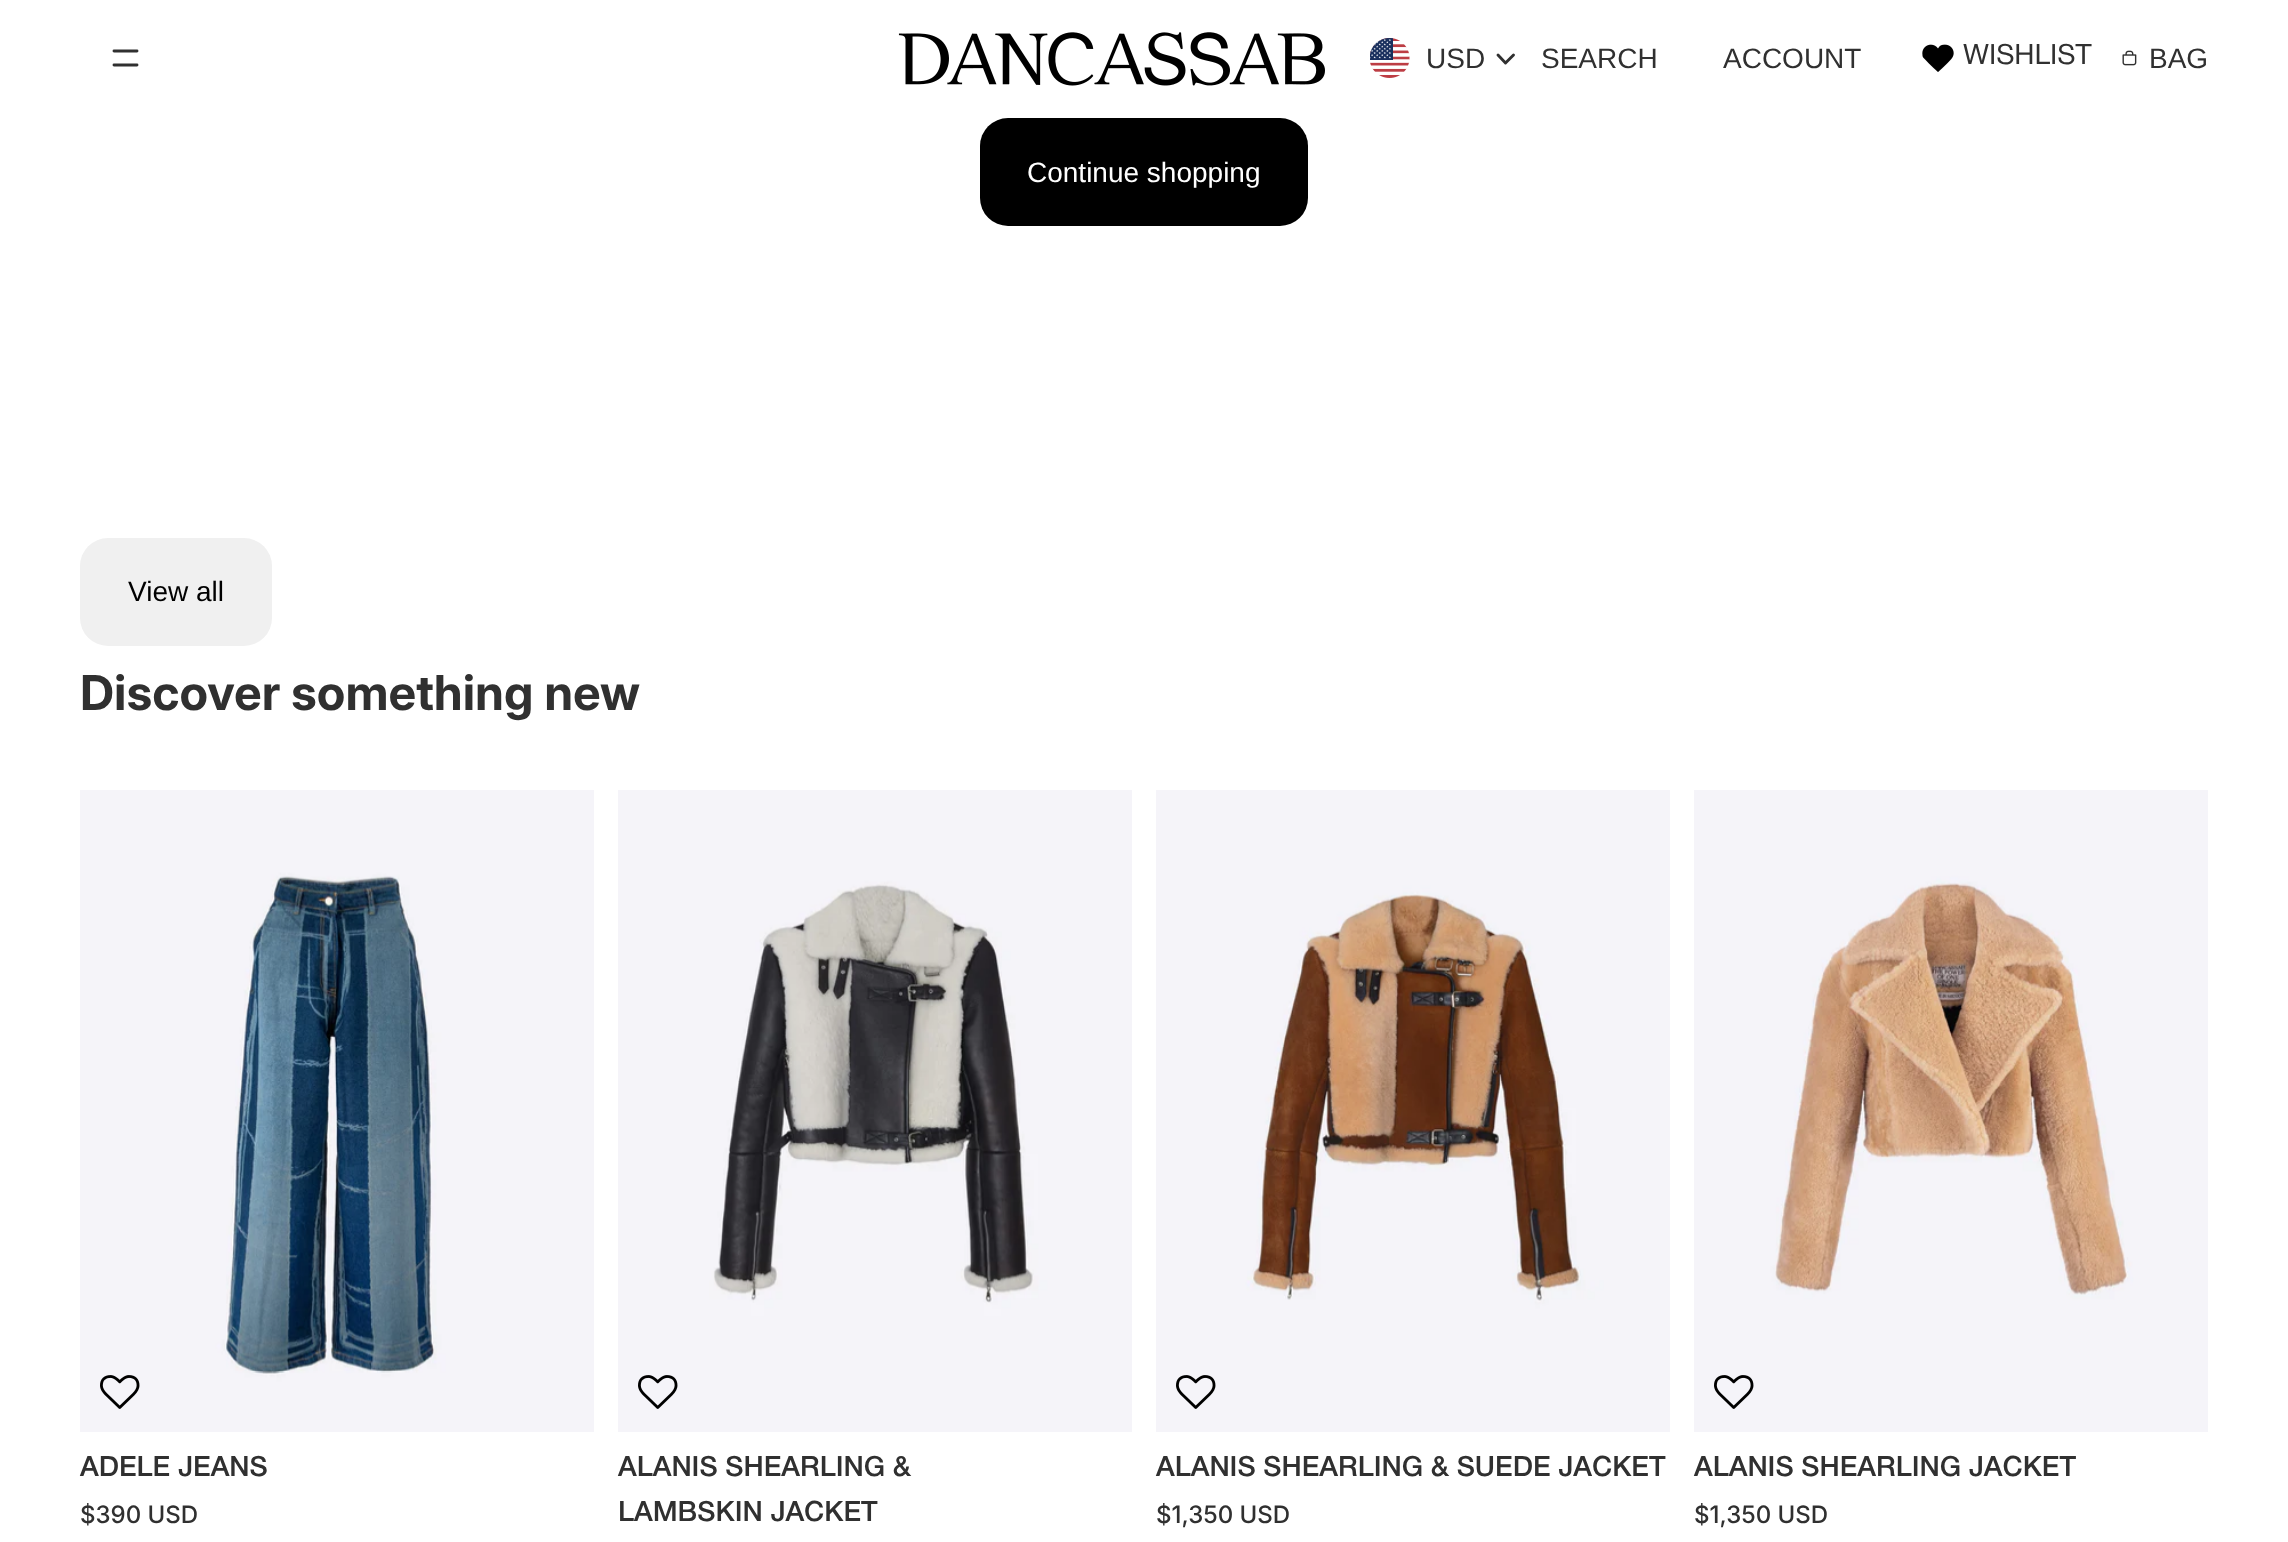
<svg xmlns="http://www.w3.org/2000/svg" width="2288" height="1542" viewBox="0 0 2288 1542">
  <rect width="100%" height="100%" fill="#fff"/>
  <path d="M114 51H137M114 65H137" fill="none" stroke="#303030" stroke-width="2.9" stroke-linecap="round"/>
  <image x="898" y="32" width="427" height="54" href="img/1.png"/>
  <image x="1370" y="38" width="40" height="40" href="img/2.png"/>
  <path d="M1513.5 55L1505.5 63L1498 55" fill="none" stroke="#303030" stroke-width="2.9" stroke-linecap="round" stroke-linejoin="round"/>
  <image x="1922" y="44" width="32" height="28" href="img/3.png"/>
  <image x="2122" y="50" width="15" height="16" href="img/4.png"/>
  <rect x="980" y="118" width="328" height="108" rx="28" fill="#000"/>
  <rect x="80" y="538" width="192" height="108" rx="28" fill="#f0f0f0"/>
  <image x="80" y="790" width="514" height="642" href="img/5.png"/>
  <image x="100" y="1375" width="40" height="34" href="img/6.png"/>
  <image x="618" y="790" width="514" height="642" href="img/7.png"/>
  <image x="638" y="1375" width="40" height="34" href="img/6.png"/>
  <image x="1156" y="790" width="514" height="642" href="img/8.png"/>
  <image x="1176" y="1375" width="40" height="34" href="img/6.png"/>
  <image x="1694" y="790" width="514" height="642" href="img/9.png"/>
  <image x="1714" y="1375" width="40" height="34" href="img/6.png"/>
  <g font-family="Liberation Sans" font-size="28" fill="#303030">
    <text x="1426" y="68">USD</text>
    <text x="1541" y="68">SEARCH</text>
    <text x="1723" y="68">ACCOUNT</text>
  </g>
  <text x="1963" y="64" font-family="Helvetica Neue" font-size="28" fill="#303030">WISHLIST</text>
  <text x="2149" y="68" font-family="Liberation Sans" font-size="28" fill="#303030">BAG</text>
  <text x="1027" y="182" font-family="Liberation Sans" font-size="28" fill="#fff">Continue shopping</text>
  <text x="128" y="601" font-family="Liberation Sans" font-size="28" fill="#000">View all</text>
  <text x="80" y="710" font-family="Inter" font-size="48" font-weight="bold" fill="#303030">Discover something new</text>
  <text x="80" y="1476" font-family="Helvetica Neue" font-size="28" font-weight="500" fill="#303030">ADELE JEANS</text>
  <text x="80" y="1523" font-family="Inter" font-size="24" font-weight="500" fill="#303030">$390 USD</text>
  <g font-family="Helvetica Neue" font-size="28" font-weight="500" fill="#303030">
    <text x="618" y="1476">ALANIS SHEARLING &amp;</text>
    <text x="618" y="1521">LAMBSKIN JACKET</text>
    <text x="1156" y="1476">ALANIS SHEARLING &amp; SUEDE JACKET</text>
  </g>
  <text x="1156" y="1523" font-family="Inter" font-size="24" font-weight="500" fill="#303030">$1,350 USD</text>
  <text x="1694" y="1476" font-family="Helvetica Neue" font-size="28" font-weight="500" fill="#303030">ALANIS SHEARLING JACKET</text>
  <text x="1694" y="1523" font-family="Inter" font-size="24" font-weight="500" fill="#303030">$1,350 USD</text>
</svg>
